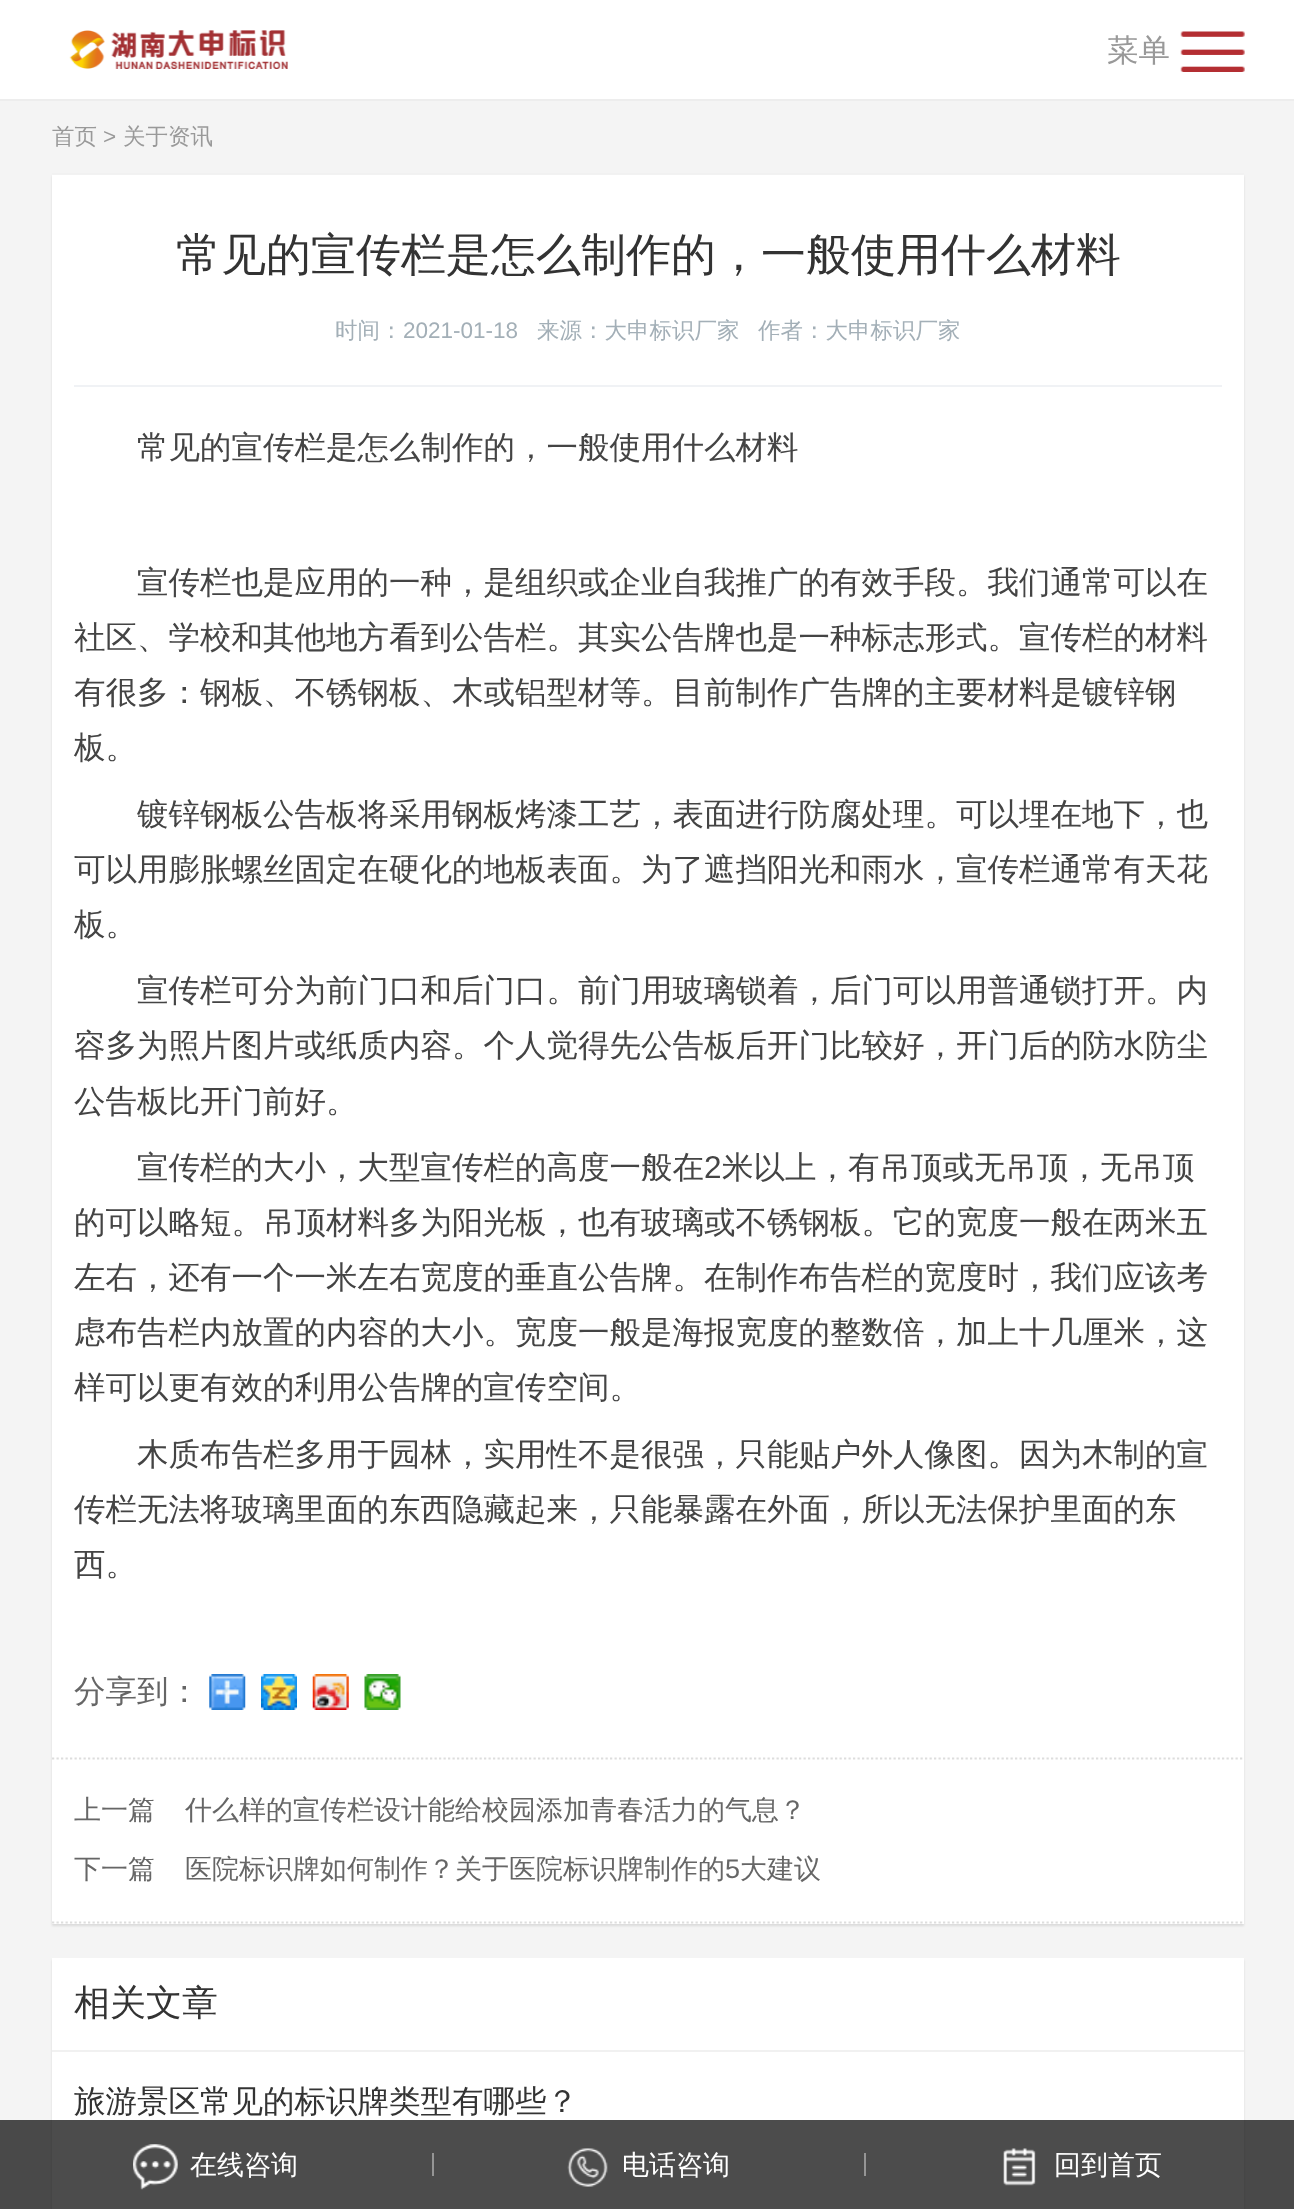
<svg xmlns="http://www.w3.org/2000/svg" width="1294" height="2209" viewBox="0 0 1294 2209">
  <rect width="100%" height="100%" fill="#fff"/>
  <path d="M0 99h1294v2H0z" fill="#ededed"/>
  <image x="69" y="30" width="219" height="39" href="img/1.png"/>
  <image x="1180" y="31" width="65" height="41" href="img/2.png"/>
  <path d="M0 101h1294v2108H0z" fill="#f4f4f4"/>
  <path d="M52 176h1192v1750H52z" fill="#0000001a" filter="blur(1px)"/>
  <path d="M52 175h1192v1749H52z" fill="#fff"/>
  <path d="M52 173h1192v1H52z" fill="#f1f1f1"/>
  <path d="M74 385h1148v2H74z" fill="#f0f2f5"/>
  <image x="209" y="1674" width="37" height="36" href="img/3.png"/>
  <image x="261" y="1674" width="36" height="36" href="img/4.png"/>
  <image x="312" y="1674" width="37" height="36" href="img/5.png"/>
  <image x="364" y="1674" width="37" height="36" href="img/6.png"/>
  <path d="M52 1758.5H1244" fill="none" stroke="#ddd" stroke-width="2.2" stroke-dasharray="2.25 2.25"/>
  <path d="M52 1922.5H1244" fill="none" stroke="#ddd" stroke-width="2.2" stroke-dasharray="2.25 2.25"/>
  <path d="M52 1960h1192v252H52z" fill="#0000001a" filter="blur(1px)"/>
  <path d="M52 1958h1192v251H52z" fill="#fff"/>
  <path d="M52 2050h1192v2H52z" fill="#f1f1f1"/>
  <path d="M0 2120h1294v89H0z" fill="#000000b3"/>
  <image x="133" y="2144" width="45" height="46" href="img/7.png"/>
  <path d="M432 2153h2v23H432z" fill="#dddddd80"/>
  <image x="567" y="2148" width="41" height="39" href="img/8.png"/>
  <path d="M864 2153h2v23H864z" fill="#959595"/>
  <image x="1003" y="2148" width="33" height="38" href="img/9.png"/>
  <text x="1107" y="61" font-family="WenQuanYi Zen Hei" font-size="31.5" font-weight="500" fill="#999">菜单</text>
  <text x="52" y="144" font-family="WenQuanYi Zen Hei" font-size="22.5" font-weight="500" fill="#999">首页</text>
  <text x="103" y="144" font-family="Liberation Sans" font-size="22.5" fill="#999">&gt;</text>
  <text x="123" y="144" font-family="WenQuanYi Zen Hei" font-size="22.5" font-weight="500" fill="#999">关于资讯</text>
  <text x="176" y="270" font-family="WenQuanYi Zen Hei" font-size="45" font-weight="500" fill="#333">常见的宣传栏是怎么制作的，一般使用什么材料</text>
  <text x="335" y="338" font-family="WenQuanYi Zen Hei" font-size="22.5" font-weight="500" fill="#a3afb7">时间：</text>
  <text x="403" y="338" font-family="Liberation Sans" font-size="22.5" fill="#a3afb7">2021-01-18</text>
  <g font-family="WenQuanYi Zen Hei" font-size="22.5" font-weight="500" fill="#a3afb7">
    <text x="537" y="338">来源：大申标识厂家</text>
    <text x="758" y="338">作者：大申标识厂家</text>
  </g>
  <g font-family="WenQuanYi Zen Hei" font-size="31.5" font-weight="500" fill="#444">
    <text x="137" y="458">常见的宣传栏是怎么制作的，一般使用什么材料</text>
    <text x="137" y="593">宣传栏也是应用的一种，是组织或企业自我推广的有效手段。我们通常可以在</text>
    <text x="74" y="648">社区、学校和其他地方看到公告栏。其实公告牌也是一种标志形式。宣传栏的材料</text>
    <text x="74" y="703">有很多：钢板、不锈钢板、木或铝型材等。目前制作广告牌的主要材料是镀锌钢</text>
    <text x="74" y="758">板。</text>
    <text x="137" y="825">镀锌钢板公告板将采用钢板烤漆工艺，表面进行防腐处理。可以埋在地下，也</text>
    <text x="74" y="880">可以用膨胀螺丝固定在硬化的地板表面。为了遮挡阳光和雨水，宣传栏通常有天花</text>
    <text x="74" y="935">板。</text>
    <text x="137" y="1001">宣传栏可分为前门口和后门口。前门用玻璃锁着，后门可以用普通锁打开。内</text>
    <text x="74" y="1056">容多为照片图片或纸质内容。个人觉得先公告板后开门比较好，开门后的防水防尘</text>
    <text x="74" y="1112">公告板比开门前好。</text>
    <text x="137" y="1178">宣传栏的大小，大型宣传栏的高度一般在</text>
  </g>
  <text x="704" y="1178" font-family="Liberation Sans" font-size="31.5" fill="#444">2</text>
  <g font-family="WenQuanYi Zen Hei" font-size="31.5" font-weight="500" fill="#444">
    <text x="722" y="1178">米以上，有吊顶或无吊顶，无吊顶</text>
    <text x="74" y="1233">的可以略短。吊顶材料多为阳光板，也有玻璃或不锈钢板。它的宽度一般在两米五</text>
    <text x="74" y="1288">左右，还有一个一米左右宽度的垂直公告牌。在制作布告栏的宽度时，我们应该考</text>
    <text x="74" y="1343">虑布告栏内放置的内容的大小。宽度一般是海报宽度的整数倍，加上十几厘米，这</text>
    <text x="74" y="1398">样可以更有效的利用公告牌的宣传空间。</text>
    <text x="137" y="1465">木质布告栏多用于园林，实用性不是很强，只能贴户外人像图。因为木制的宣</text>
    <text x="74" y="1520">传栏无法将玻璃里面的东西隐藏起来，只能暴露在外面，所以无法保护里面的东</text>
    <text x="74" y="1575">西。</text>
  </g>
  <text x="74" y="1702" font-family="WenQuanYi Zen Hei" font-size="31.5" font-weight="500" fill="#666">分享到：</text>
  <g font-family="WenQuanYi Zen Hei" font-size="27" font-weight="500" fill="#666">
    <text x="74" y="1819">上一篇</text>
    <text x="185" y="1819">什么样的宣传栏设计能给校园添加青春活力的气息？</text>
    <text x="74" y="1878">下一篇</text>
    <text x="185" y="1878">医院标识牌如何制作？关于医院标识牌制作的</text>
  </g>
  <text x="725" y="1878" font-family="Liberation Sans" font-size="27" fill="#666">5</text>
  <text x="740" y="1878" font-family="WenQuanYi Zen Hei" font-size="27" font-weight="500" fill="#666">大建议</text>
  <text x="74" y="2015" font-family="WenQuanYi Zen Hei" font-size="36" font-weight="500" fill="#333">相关文章</text>
  <text x="74" y="2112" font-family="WenQuanYi Zen Hei" font-size="31.5" font-weight="500" fill="#333">旅游景区常见的标识牌类型有哪些？</text>
  <g font-family="WenQuanYi Zen Hei" font-size="27" font-weight="500" fill="#fff">
    <text x="190" y="2174">在线咨询</text>
    <text x="622" y="2174">电话咨询</text>
    <text x="1054" y="2174">回到首页</text>
  </g>
</svg>
